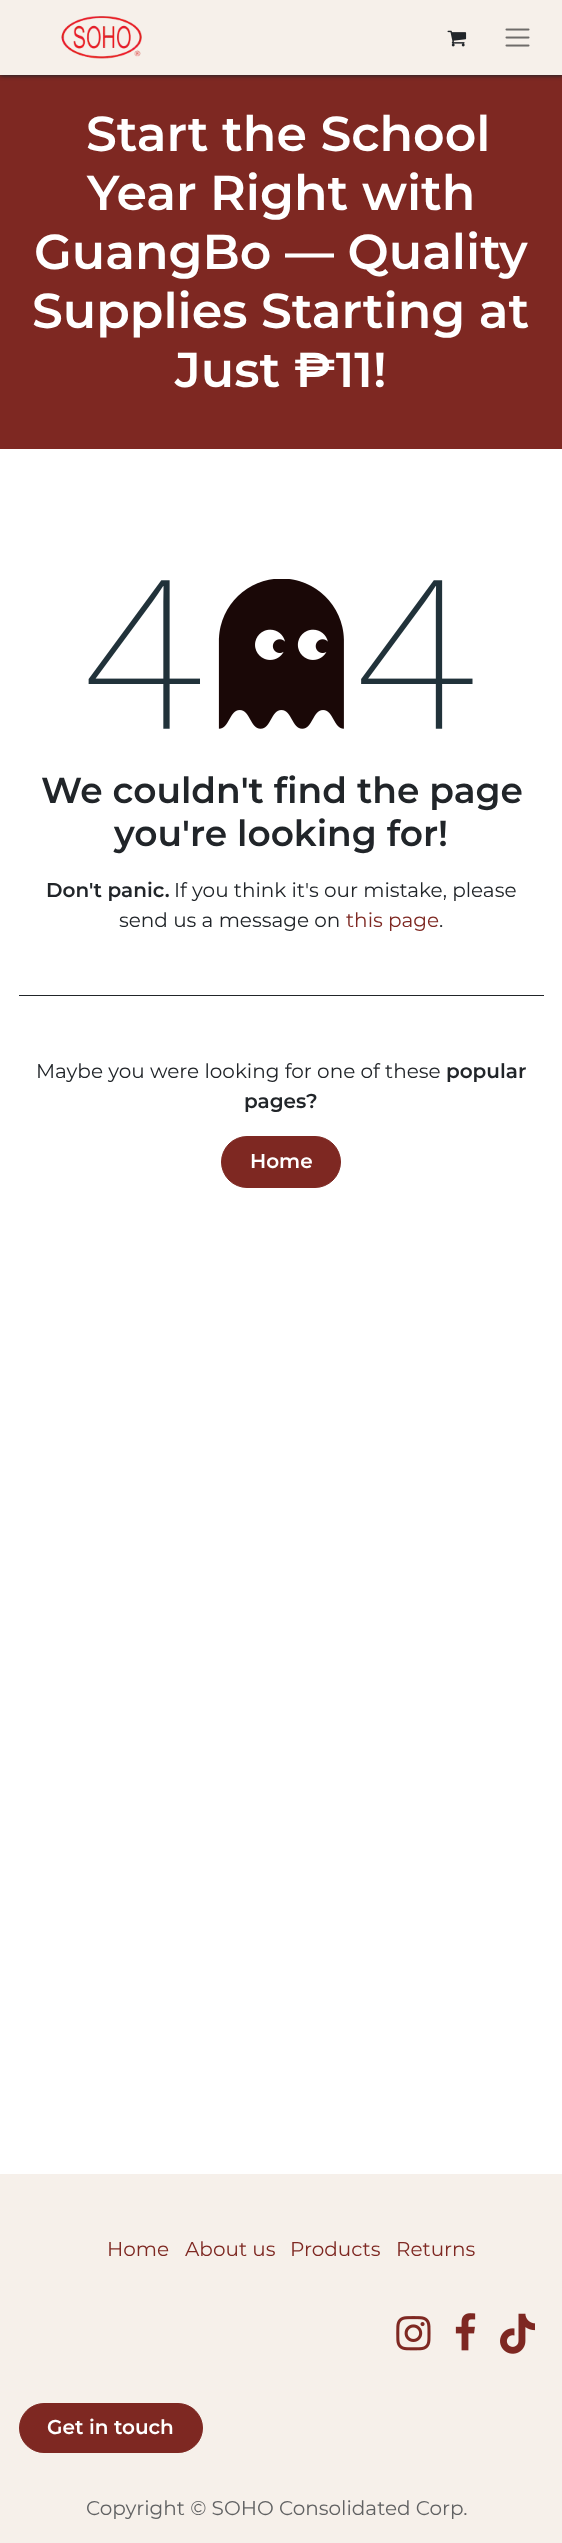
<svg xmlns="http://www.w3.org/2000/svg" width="562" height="2543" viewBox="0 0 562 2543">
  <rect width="100%" height="100%" fill="#fff"/>
  <path d="M0 75h562v374H0z" fill="#7e2822"/>
  <path d="M0 1h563v75H0z" fill="#212529" filter="blur(2px)"/>
  <path d="M0 0h562v75H0z" fill="#f6f0ea"/>
  <image x="61" y="16" width="81" height="43" href="img/1.png"/>
  <image x="447" y="30" width="20" height="17" href="img/2.png"/>
  <image x="505" y="28" width="25" height="19" href="img/3.png"/>
  <image x="88" y="579" width="385" height="150" href="img/4.png"/>
  <path d="M19 995h525v1H19z" fill="#212529"/>
  <rect x="221.5" y="1136.5" width="119" height="51" rx="25.5" fill="#7e2822" stroke="#7e2822"/>
  <path d="M0 2174h562v369H0z" fill="#f6f0ea"/>
  <image x="396" y="2316" width="35" height="35" href="img/5.png"/>
  <image x="455" y="2313" width="21" height="38" href="img/6.png"/>
  <image x="500" y="2313" width="35" height="41" href="img/7.png"/>
  <rect x="19.5" y="2403.5" width="183" height="49" rx="24.5" fill="#7e2822" stroke="#7e2822"/>
  <g font-family="Montserrat" font-size="49" font-weight="600" fill="#fff">
    <text x="86" y="151">Start the School</text>
    <text x="87" y="210">Year Right with</text>
    <text x="34" y="269">GuangBo — Quality</text>
    <text x="32" y="328">Supplies Starting at</text>
    <text x="175" y="387">Just ₱11!</text>
  </g>
  <g font-family="Montserrat" font-size="36" font-weight="600" fill="#212529">
    <text x="41" y="803">We couldn't find the page</text>
    <text x="114" y="846">you're looking for!</text>
  </g>
  <text x="46" y="897" font-family="Montserrat" font-size="20" font-weight="600" fill="#212529">Don't panic.</text>
  <g font-family="Montserrat" font-size="20" fill="#212529">
    <text x="174" y="897">If you think it's our mistake, please</text>
    <text x="119" y="927">send us a message on</text>
  </g>
  <text x="346" y="927" font-family="Montserrat" font-size="20" fill="#7e2822">this page</text>
  <g font-family="Montserrat" font-size="20" fill="#212529">
    <text x="439" y="927">.</text>
    <text x="36" y="1078">Maybe you were looking for one of these</text>
  </g>
  <g font-family="Montserrat" font-size="20" font-weight="600" fill="#212529">
    <text x="446" y="1078">popular</text>
    <text x="244" y="1108">pages?</text>
  </g>
  <text x="250" y="1168" font-family="Montserrat" font-size="20" font-weight="600" fill="#fff">Home</text>
  <g font-family="Montserrat" font-size="20" fill="#7e2822">
    <text x="107" y="2256">Home</text>
    <text x="185" y="2256">About us</text>
    <text x="290" y="2256">Products</text>
    <text x="396" y="2256">Returns</text>
  </g>
  <text x="47" y="2434" font-family="Montserrat" font-size="20" font-weight="600" fill="#fff">Get in touch</text>
  <text x="86" y="2515" font-family="Montserrat" font-size="20" fill="#616263">Copyright © SOHO Consolidated Corp.</text>
</svg>
